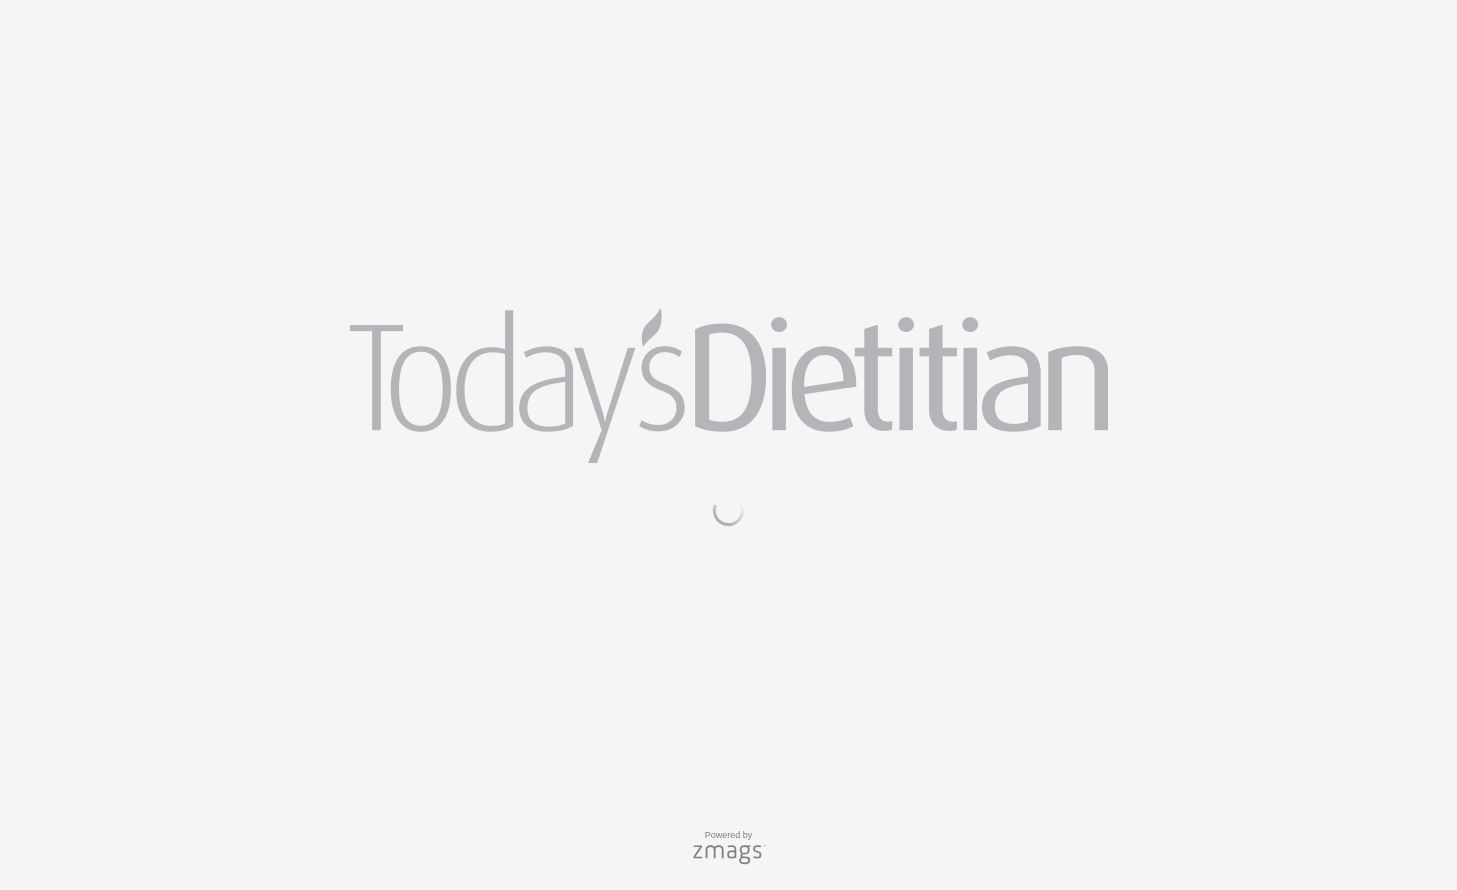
<svg xmlns="http://www.w3.org/2000/svg" width="1457" height="890" viewBox="0 0 1457 890">
  <rect width="100%" height="100%" fill="#fff"/>
  <image x="0" y="0" width="1457" height="890" href="img/1.png"/>
</svg>
